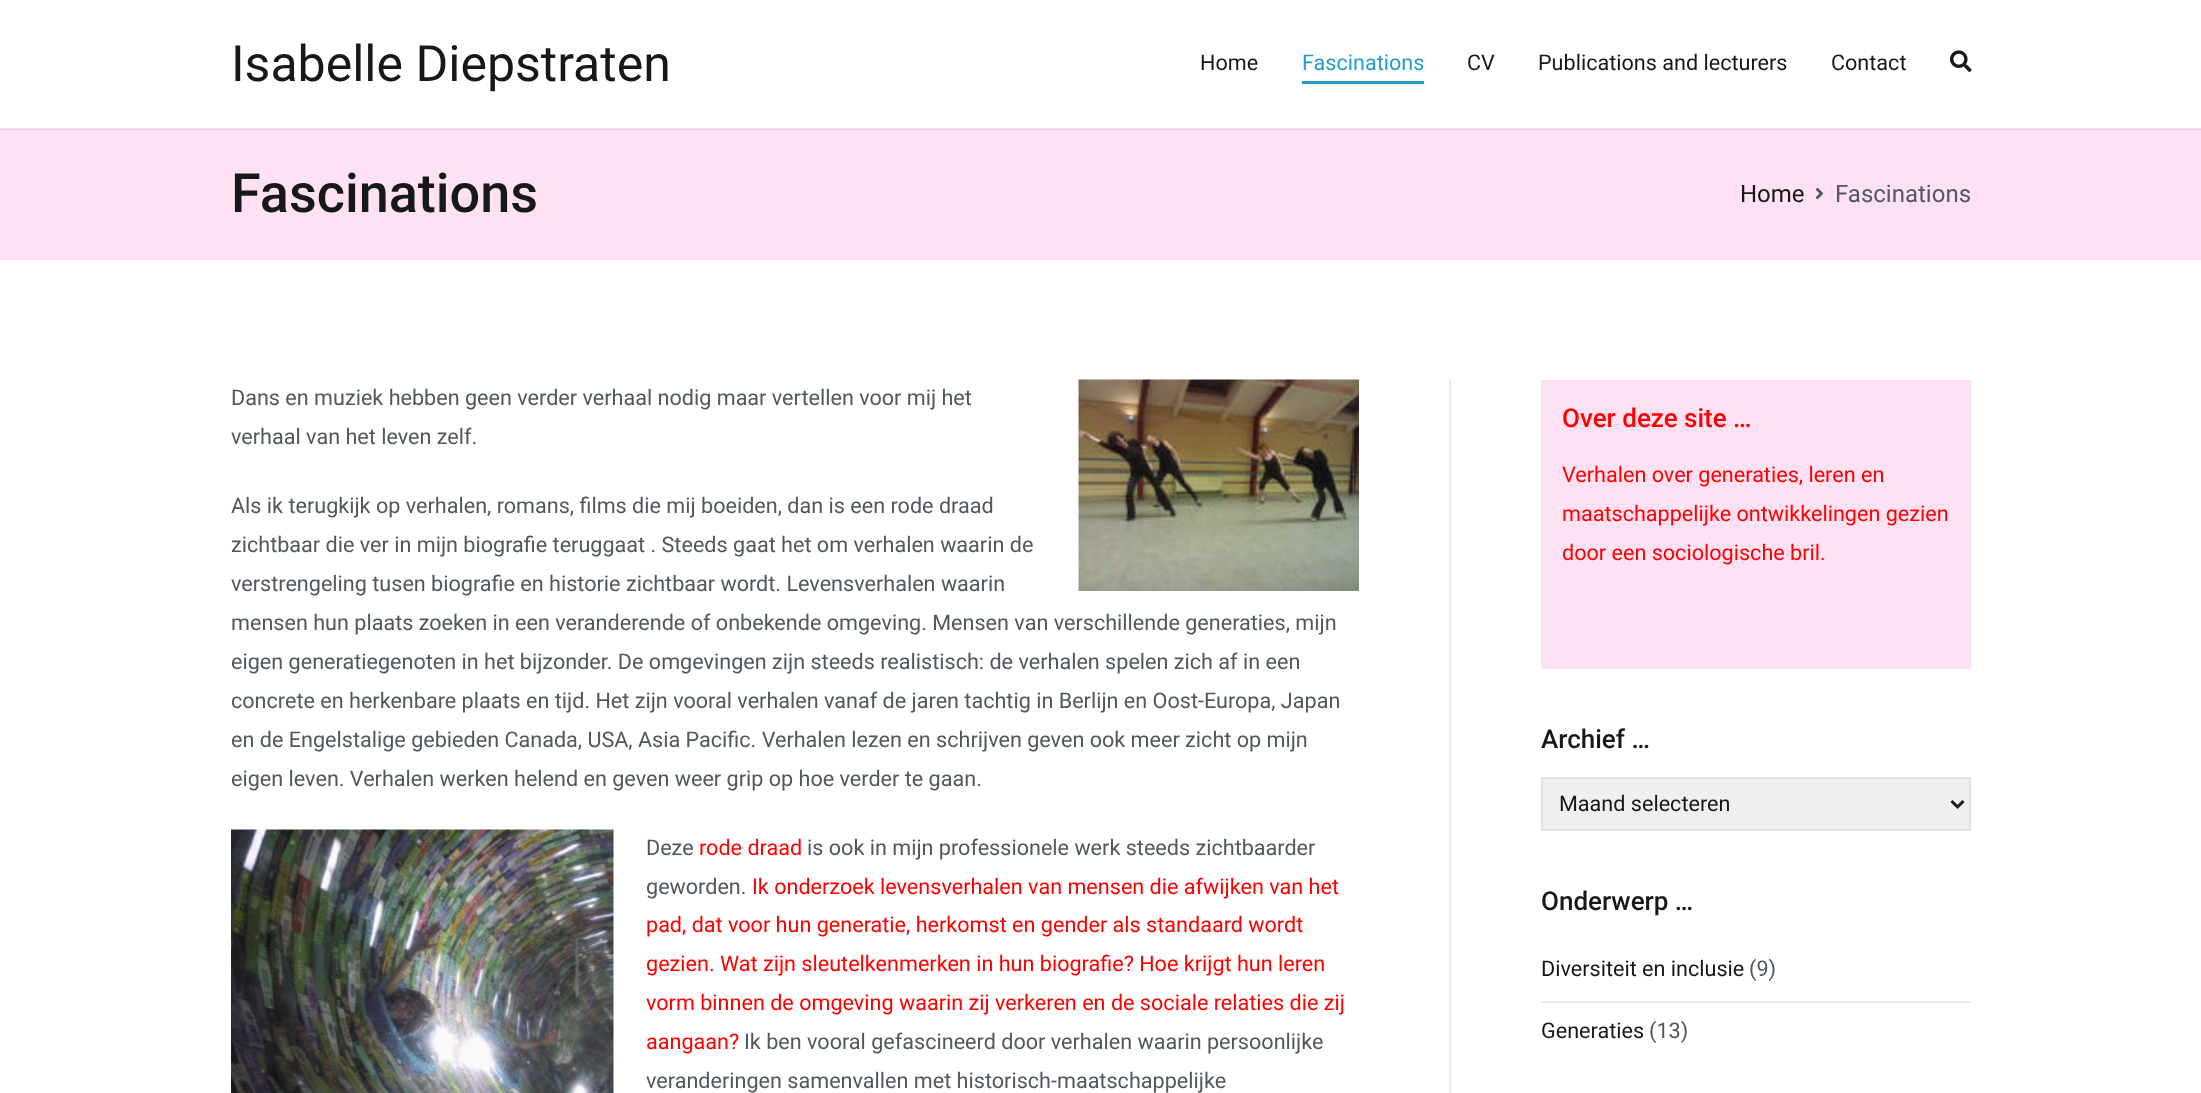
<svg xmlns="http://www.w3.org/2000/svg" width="2201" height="1093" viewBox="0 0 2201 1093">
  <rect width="100%" height="100%" fill="#fff"/>
  <path d="M0 130h2201v130H0z" fill="#fee2f3"/>
  <path d="M0 128h2201v1H0z" fill="#e9ecef"/>
  <path d="M0 129h2201v1H0z" fill="#ead1e4"/>
  <path d="M1302 81h122v3H1302z" fill="#269bd1"/>
  <image x="1950" y="50" width="22" height="22" href="img/1.png"/>
  <image x="1815" y="187" width="9" height="13" href="img/2.png"/>
  <image x="1078" y="379" width="281" height="212" href="img/3.png"/>
  <image x="231" y="829" width="383" height="264" href="img/4.png"/>
  <path d="M1449 380h2v713H1449z" fill="#e9ecef"/>
  <path d="M1541 380h430v289H1541z" fill="#fee2f3"/>
  <path d="M1542 778h428v52H1542z" fill="#efefef" stroke="#dee2e6" stroke-width="2"/>
  <path d="M1951.5 801L1957.5 807L1963.5 801" fill="none" stroke="#16181a" stroke-width="3"/>
  <path d="M1541 1001h430v2H1541z" fill="#e9ecef"/>
  <text x="231" y="81" font-family="Roboto" font-size="50" fill="#16181a">Isabelle Diepstraten</text>
  <text x="1200" y="70" font-family="Roboto" font-size="21.6" fill="#16181a">Home</text>
  <text x="1302" y="70" font-family="Roboto" font-size="21.6" fill="#269bd1">Fascinations</text>
  <g font-family="Roboto" font-size="21.6" fill="#16181a">
    <text x="1467" y="70">CV</text>
    <text x="1538" y="70">Publications and lecturers</text>
    <text x="1831" y="70">Contact</text>
  </g>
  <text x="231" y="212" font-family="Roboto" font-size="54" font-weight="500" fill="#16181a">Fascinations</text>
  <text x="1740" y="202" font-family="Roboto" font-size="24" fill="#16181a">Home</text>
  <text x="1835" y="202" font-family="Roboto" font-size="24" fill="#51585f">Fascinations</text>
  <g font-family="Roboto" font-size="21.6" fill="#51585f">
    <text x="231" y="405">Dans en muziek hebben geen verder verhaal nodig maar vertellen voor mij het</text>
    <text x="231" y="444">verhaal van het leven zelf.</text>
    <text x="231" y="513">Als ik terugkijk op verhalen, romans, films die mij boeiden, dan is een rode draad</text>
    <text x="231" y="552">zichtbaar die ver in mijn biografie teruggaat . Steeds gaat het om verhalen waarin de</text>
    <text x="231" y="591">verstrengeling tusen biografie en historie zichtbaar wordt. Levensverhalen waarin</text>
    <text x="231" y="630">mensen hun plaats zoeken in een veranderende of onbekende omgeving. Mensen van verschillende generaties, mijn</text>
    <text x="231" y="669">eigen generatiegenoten in het bijzonder. De omgevingen zijn steeds realistisch: de verhalen spelen zich af in een</text>
    <text x="231" y="708">concrete en herkenbare plaats en tijd. Het zijn vooral verhalen vanaf de jaren tachtig in Berlijn en Oost-Europa, Japan</text>
    <text x="231" y="747">en de Engelstalige gebieden Canada, USA, Asia Pacific. Verhalen lezen en schrijven geven ook meer zicht op mijn</text>
    <text x="231" y="786">eigen leven. Verhalen werken helend en geven weer grip op hoe verder te gaan.</text>
    <text x="646" y="855">Deze</text>
  </g>
  <text x="699" y="855" font-family="Roboto" font-size="21.6" fill="#f00">rode draad</text>
  <g font-family="Roboto" font-size="21.6" fill="#51585f">
    <text x="807" y="855">is ook in mijn professionele werk steeds zichtbaarder</text>
    <text x="646" y="894">geworden.</text>
  </g>
  <g font-family="Roboto" font-size="21.6" fill="#f00">
    <text x="752" y="894">Ik onderzoek levensverhalen van mensen die afwijken van het</text>
    <text x="646" y="932">pad, dat voor hun generatie, herkomst en gender als standaard wordt</text>
    <text x="646" y="971">gezien. Wat zijn sleutelkenmerken in hun biografie? Hoe krijgt hun leren</text>
    <text x="646" y="1010">vorm binnen de omgeving waarin zij verkeren en de sociale relaties die zij</text>
    <text x="646" y="1049">aangaan?</text>
  </g>
  <g font-family="Roboto" font-size="21.6" fill="#51585f">
    <text x="744" y="1049">Ik ben vooral gefascineerd door verhalen waarin persoonlijke</text>
    <text x="646" y="1088">veranderingen samenvallen met historisch-maatschappelijke</text>
  </g>
  <text x="1562" y="427" font-family="Roboto" font-size="26" font-weight="500" fill="#f00">Over deze site …</text>
  <g font-family="Roboto" font-size="21.6" fill="#f00">
    <text x="1562" y="482">Verhalen over generaties, leren en</text>
    <text x="1562" y="521">maatschappelijke ontwikkelingen gezien</text>
    <text x="1562" y="560">door een sociologische bril.</text>
  </g>
  <text x="1541" y="748" font-family="Roboto" font-size="26" font-weight="500" fill="#16181a">Archief …</text>
  <text x="1559" y="811" font-family="Roboto" font-size="21.6" fill="#16181a">Maand selecteren</text>
  <text x="1541" y="910" font-family="Roboto" font-size="26" font-weight="500" fill="#16181a">Onderwerp …</text>
  <text x="1541" y="976" font-family="Roboto" font-size="21.6" fill="#16181a">Diversiteit en inclusie</text>
  <text x="1749" y="976" font-family="Roboto" font-size="21.6" fill="#51585f">(9)</text>
  <text x="1541" y="1038" font-family="Roboto" font-size="21.6" fill="#16181a">Generaties</text>
  <text x="1649" y="1038" font-family="Roboto" font-size="21.6" fill="#51585f">(13)</text>
</svg>
